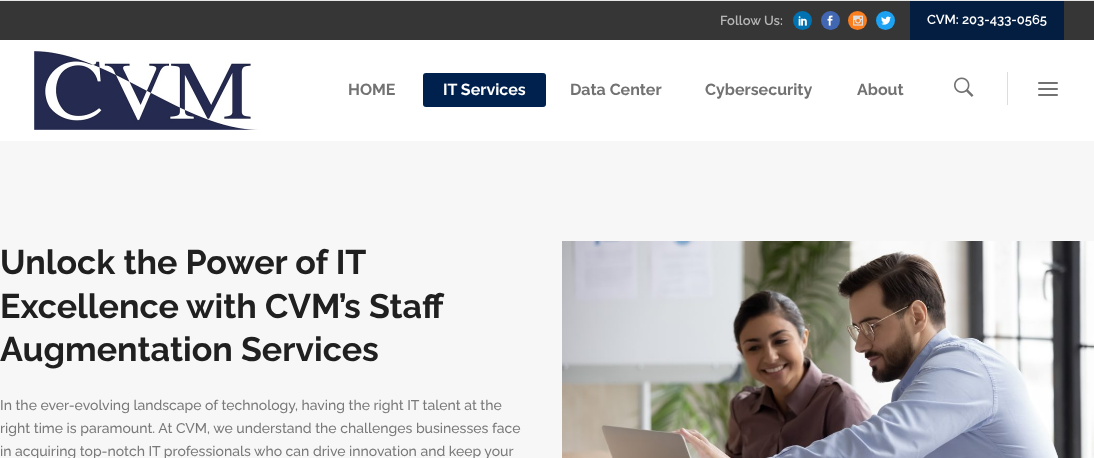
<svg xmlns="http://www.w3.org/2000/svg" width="1094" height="458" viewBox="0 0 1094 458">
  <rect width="100%" height="100%" fill="#fff"/>
  <path d="M0 1h1094v39H0z" fill="#363636"/>
  <circle cx="802.5" cy="20.5" r="9.5" fill="#0072b1"/>
  <image x="798" y="16" width="9" height="10" href="img/1.png"/>
  <circle cx="830.5" cy="20.5" r="9.5" fill="#4267b2"/>
  <image x="827" y="15" width="6" height="11" href="img/2.png"/>
  <circle cx="857.5" cy="20.5" r="9.5" fill="#fa7e1e"/>
  <image x="853" y="15" width="10" height="11" href="img/3.png"/>
  <circle cx="885.5" cy="20.5" r="9.5" fill="#1da1f2"/>
  <image x="881" y="16" width="10" height="9" href="img/4.png"/>
  <path d="M910 1h154v39H910z" fill="#041e42"/>
  <path d="M0 0h1094v1H0z" fill="#e7e7e7"/>
  <image x="34" y="51" width="224" height="79" href="img/5.png"/>
  <rect x="423" y="73" width="123" height="34" rx="3" fill="#00214d"/>
  <image x="954" y="77" width="20" height="20" href="img/6.png"/>
  <path d="M1007 72h1v33H1007z" fill="#ddd"/>
  <image x="1038" y="82" width="20" height="14" href="img/7.png"/>
  <path d="M0 141h1094v317H0z" fill="#f7f7f7"/>
  <image x="562" y="241" width="532" height="217" href="img/8.png"/>
  <text x="720" y="25" font-family="Raleway" font-size="13" font-weight="600" fill="#b6b6b6">Follow Us:</text>
  <text x="927" y="24" font-family="Raleway" font-size="13" font-weight="600" fill="#fff">CVM: 203-433-0565</text>
  <text x="348" y="95" font-family="Raleway" font-size="16" font-weight="bold" fill="#727272">HOME</text>
  <text x="443" y="95" font-family="Raleway" font-size="16" font-weight="bold" fill="#fff">IT Services</text>
  <g font-family="Raleway" font-size="16" font-weight="bold" fill="#727272">
    <text x="570" y="95">Data Center</text>
    <text x="705" y="95">Cybersecurity</text>
    <text x="857" y="95">About</text>
  </g>
  <g font-family="Raleway" font-size="34" font-weight="bold" fill="#202020">
    <text x="0" y="274">Unlock the Power of IT</text>
    <text x="0" y="318">Excellence with CVM’s Staff</text>
    <text x="0" y="361">Augmentation Services</text>
  </g>
  <g font-family="Raleway" font-size="14" font-weight="500" fill="#797979">
    <text x="0" y="410">In the ever-evolving landscape of technology, having the right IT talent at the</text>
    <text x="0" y="433">right time is paramount. At CVM, we understand the challenges businesses face</text>
    <text x="0" y="456">in acquiring top-notch IT professionals who can drive innovation and keep your</text>
  </g>
</svg>
